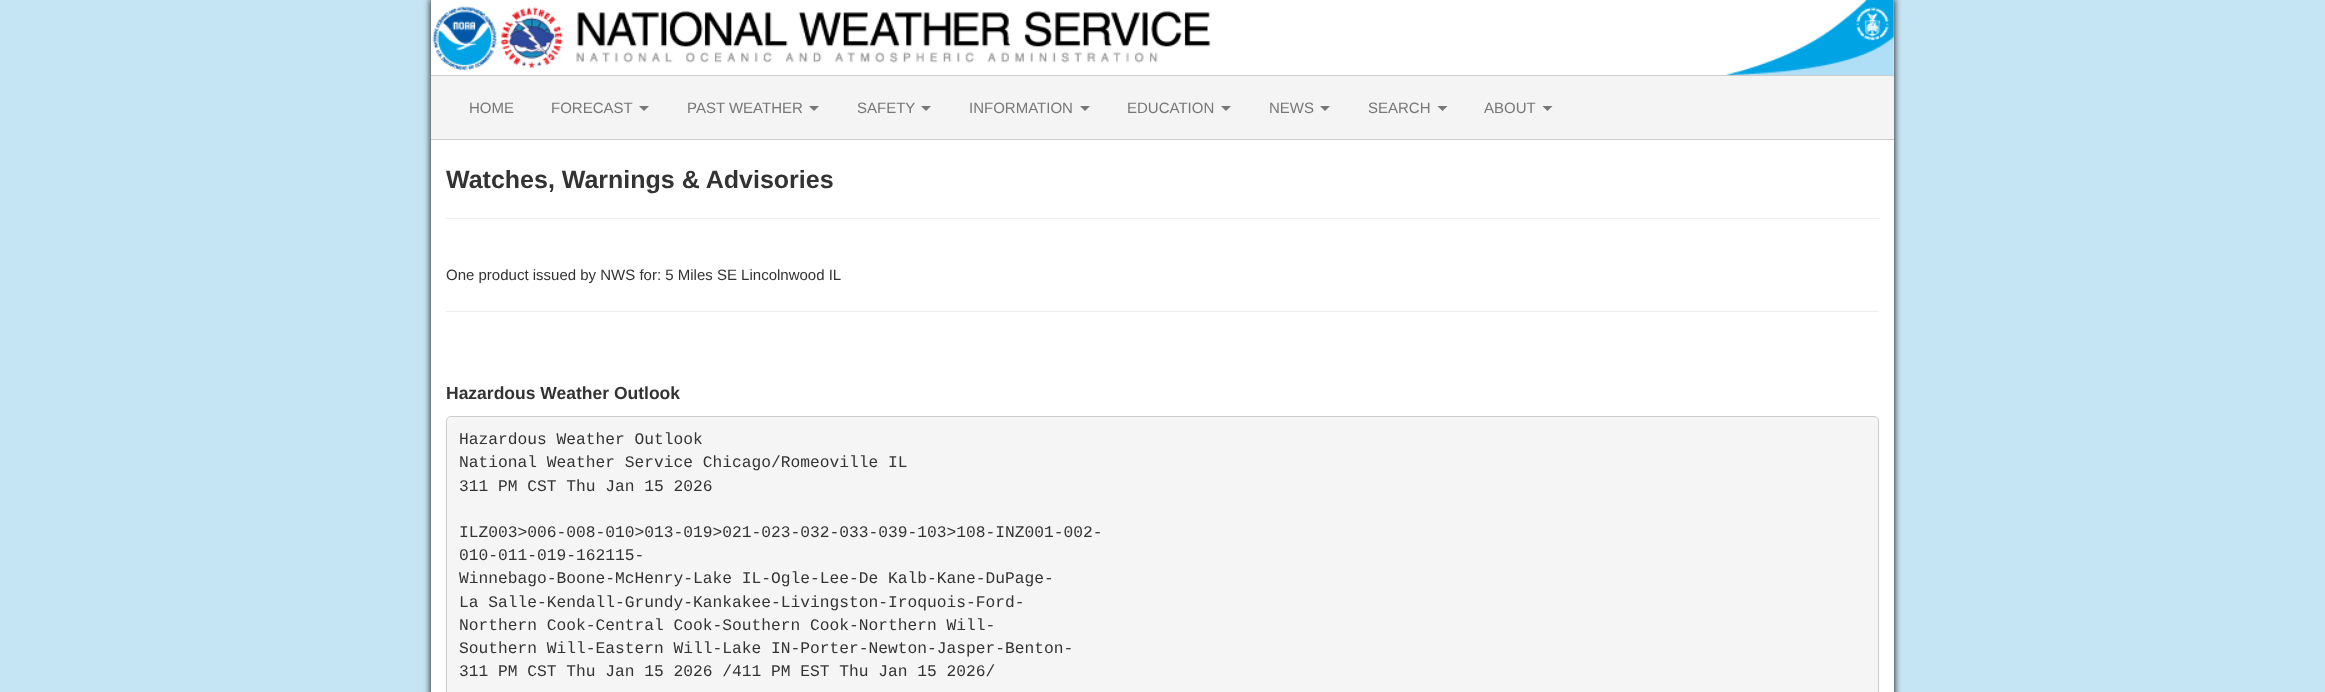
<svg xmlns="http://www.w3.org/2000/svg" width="2325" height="692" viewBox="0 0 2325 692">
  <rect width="100%" height="100%" fill="#c5e5f5"/>
  <path d="M430 -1h1465v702H430z" fill="#333" filter="blur(3px)"/>
  <path d="M431 0h1463v692H431z" fill="#fff"/>
  <image x="432" y="6" width="65" height="65" href="img/1.png"/>
  <image x="501" y="7" width="710" height="62" href="img/2.png"/>
  <image x="1725" y="0" width="169" height="75" href="img/3.png"/>
  <path d="M431 76h1463v63H431z" fill="#f4f4f4"/>
  <path d="M431 75h1463v1H431z" fill="#ccc"/>
  <path d="M431 139h1463v1H431z" fill="#ccc"/>
  <path d="M639 106H649L644 111Z" fill="#777"/>
  <path d="M809 106H819L814 111Z" fill="#777"/>
  <path d="M921 106H931L926 111Z" fill="#777"/>
  <path d="M1080 106H1090L1085 111Z" fill="#777"/>
  <path d="M1221 106H1231L1226 111Z" fill="#777"/>
  <path d="M1320 106H1330L1325 111Z" fill="#777"/>
  <path d="M1437.5 106H1447.5L1442.5 111Z" fill="#777"/>
  <path d="M1542.5 106H1552.5L1547.5 111Z" fill="#777"/>
  <path d="M446 218h1433v1H446z" fill="#eee"/>
  <path d="M446 311h1433v1H446z" fill="#eee"/>
  <rect x="446.5" y="416.5" width="1432" height="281" rx="4.5" fill="#f5f5f5" stroke="#ccc"/>
  <g font-family="Liberation Sans" font-size="15" fill="#777">
    <text x="469" y="113">HOME</text>
    <text x="551" y="113">FORECAST</text>
    <text x="687" y="113">PAST WEATHER</text>
    <text x="857" y="113">SAFETY</text>
    <text x="969" y="113">INFORMATION</text>
    <text x="1127" y="113">EDUCATION</text>
    <text x="1269" y="113">NEWS</text>
    <text x="1368" y="113">SEARCH</text>
    <text x="1484" y="113">ABOUT</text>
  </g>
  <text x="446" y="188" font-family="Liberation Sans" font-size="25" font-weight="bold" fill="#333">Watches, Warnings &amp; Advisories</text>
  <text x="446" y="280" font-family="Liberation Sans" font-size="15" fill="#333">One product issued by NWS for: 5 Miles SE Lincolnwood IL</text>
  <text x="446" y="399" font-family="Liberation Sans" font-size="17.5" font-weight="bold" fill="#333">Hazardous Weather Outlook</text>
  <g font-family="Liberation Mono" font-size="16.25" fill="#333">
    <text x="459" y="444">Hazardous Weather Outlook</text>
    <text x="459" y="467">National Weather Service Chicago/Romeoville IL</text>
    <text x="459" y="491">311 PM CST Thu Jan 15 2026</text>
    <text x="459" y="537">ILZ003&gt;006-008-010&gt;013-019&gt;021-023-032-033-039-103&gt;108-INZ001-002-</text>
    <text x="459" y="560">010-011-019-162115-</text>
    <text x="459" y="583">Winnebago-Boone-McHenry-Lake IL-Ogle-Lee-De Kalb-Kane-DuPage-</text>
    <text x="459" y="607">La Salle-Kendall-Grundy-Kankakee-Livingston-Iroquois-Ford-</text>
    <text x="459" y="630">Northern Cook-Central Cook-Southern Cook-Northern Will-</text>
    <text x="459" y="653">Southern Will-Eastern Will-Lake IN-Porter-Newton-Jasper-Benton-</text>
    <text x="459" y="676">311 PM CST Thu Jan 15 2026 /411 PM EST Thu Jan 15 2026/</text>
  </g>
</svg>
